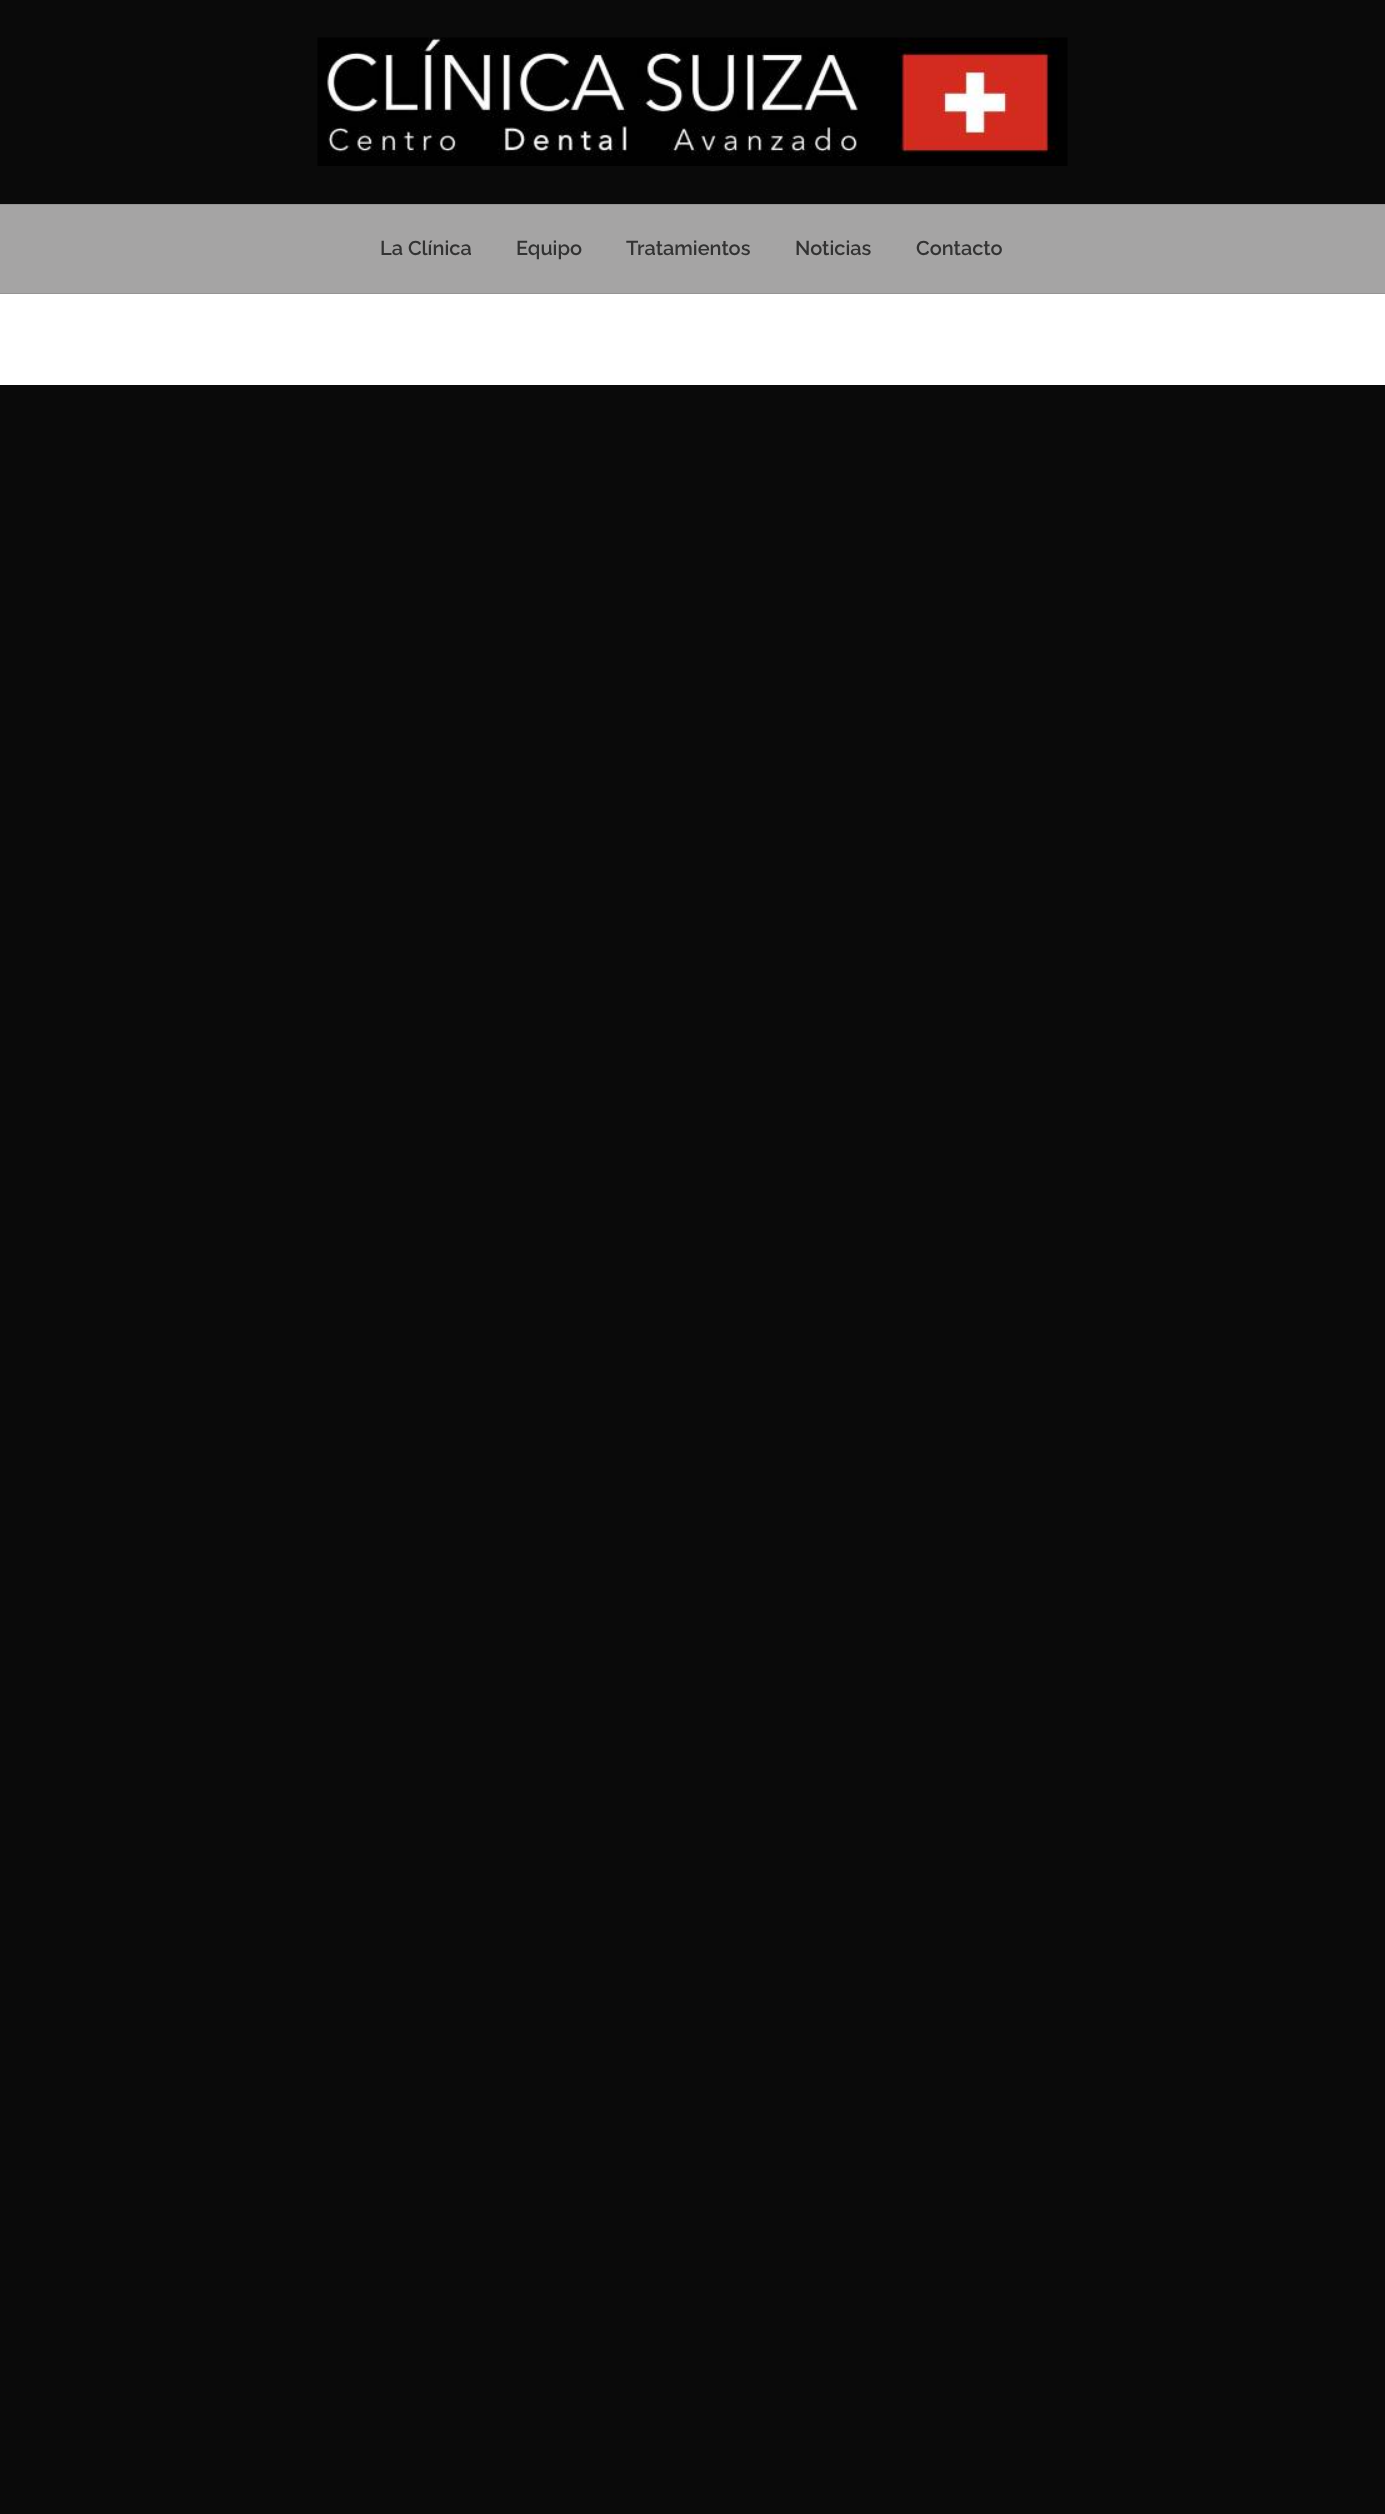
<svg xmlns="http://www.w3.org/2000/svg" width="1385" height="2514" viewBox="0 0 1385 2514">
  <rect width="100%" height="100%" fill="#0a0a0a"/>
  <path d="M0 294h1385v91H0z" fill="#fff"/>
  <image x="317" y="37" width="751" height="129" href="img/1.png"/>
  <path d="M0 205h1385v88H0z" fill="#a5a4a4"/>
  <path d="M0 204h1385v1H0z" fill="#959494"/>
  <path d="M0 293h1385v1H0z" fill="#959494"/>
  <g font-family="Raleway" font-size="20" font-weight="600" fill="#333">
    <text x="380" y="255">La Clínica</text>
    <text x="516" y="255">Equipo</text>
    <text x="626" y="255">Tratamientos</text>
    <text x="795" y="255">Noticias</text>
    <text x="916" y="255">Contacto</text>
  </g>
</svg>
